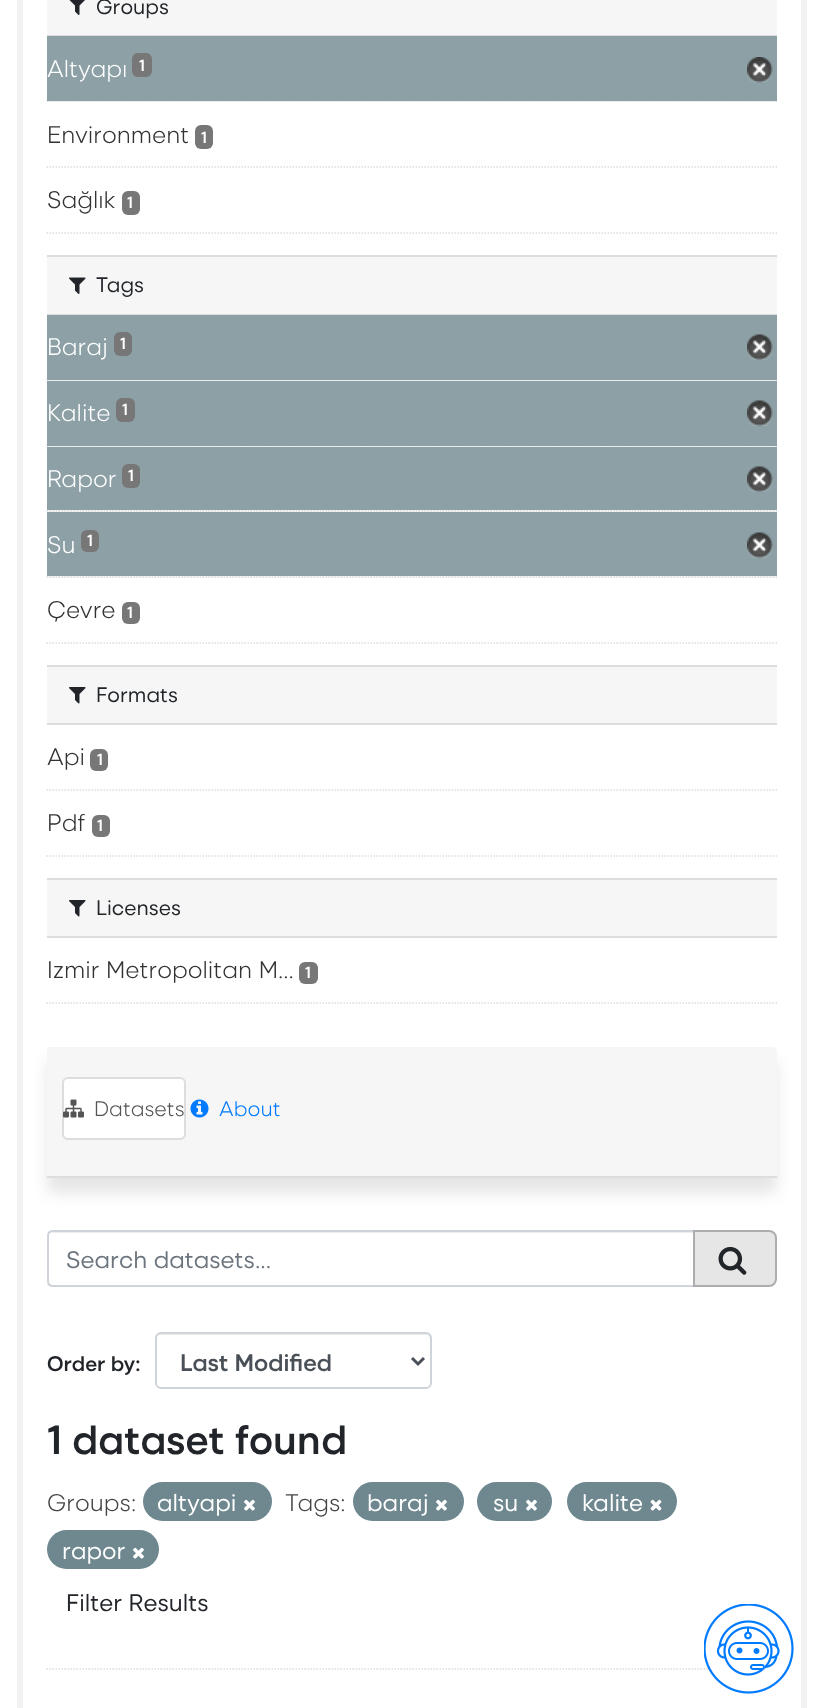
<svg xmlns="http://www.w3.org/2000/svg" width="823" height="1708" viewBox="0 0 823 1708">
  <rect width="100%" height="100%" fill="#fff"/>
  <path d="M20 -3h784v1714H20z" fill="none" stroke="#f2f2f2" stroke-width="6"/>
  <path d="M47 0h730v35H47z" fill="#f6f6f6"/>
  <path d="M47 35h730v1H47z" fill="#ddd"/>
  <image x="69" y="0" width="16" height="15" href="img/1.png"/>
  <path d="M47 101h730v1H47z" fill="#f6f6f6"/>
  <path d="M46.5 101H777" fill="none" stroke="#ddd" stroke-width="1.5" stroke-dasharray="1.5 1.5"/>
  <path d="M47 36h730v65H47z" fill="#8ca0a6"/>
  <rect x="132" y="53" width="20" height="24" rx="6" fill="#777"/>
  <image x="747" y="57" width="26" height="26" href="img/2.png"/>
  <path d="M46.5 167H777" fill="none" stroke="#ddd" stroke-width="1.5" stroke-dasharray="1.5 1.5"/>
  <rect x="195" y="125" width="18" height="24" rx="6" fill="#777"/>
  <rect x="122" y="191" width="18" height="24" rx="6" fill="#777"/>
  <path d="M46.5 233H777" fill="none" stroke="#ddd" stroke-width="1.5" stroke-dasharray="1.5 1.5"/>
  <path d="M47 257h730v57H47z" fill="#f6f6f6"/>
  <path d="M47 255h730v2H47z" fill="#ddd"/>
  <path d="M47 314h730v1H47z" fill="#ddd"/>
  <image x="69" y="277" width="17" height="17" href="img/3.png"/>
  <path d="M47 380h730v1H47z" fill="#f6f6f6"/>
  <path d="M46.5 380H777" fill="none" stroke="#ddd" stroke-width="1.5" stroke-dasharray="1.5 1.5"/>
  <path d="M47 315h730v65H47z" fill="#8ca0a6"/>
  <rect x="114" y="332" width="18" height="24" rx="6" fill="#777"/>
  <image x="747" y="334" width="26" height="26" href="img/4.png"/>
  <path d="M47 446h730v1H47z" fill="#f6f6f6"/>
  <path d="M46.5 446H777" fill="none" stroke="#ddd" stroke-width="1.5" stroke-dasharray="1.5 1.5"/>
  <path d="M47 381h730v65H47z" fill="#8ca0a6"/>
  <rect x="116" y="398" width="19" height="24" rx="6" fill="#777"/>
  <image x="747" y="400" width="26" height="26" href="img/4.png"/>
  <path d="M47 510h730v2H47z" fill="#f6f6f6"/>
  <path d="M46.5 511H777" fill="none" stroke="#ddd" stroke-width="1.5" stroke-dasharray="1.5 1.5"/>
  <path d="M47 447h730v63H47z" fill="#8ca0a6"/>
  <rect x="122" y="464" width="18" height="24" rx="6" fill="#777"/>
  <image x="747" y="466" width="26" height="26" href="img/4.png"/>
  <path d="M47 576h730v2H47z" fill="#f6f6f6"/>
  <path d="M46.5 577H777" fill="none" stroke="#ddd" stroke-width="1.5" stroke-dasharray="1.5 1.5"/>
  <path d="M47 512h730v64H47z" fill="#8ca0a6"/>
  <rect x="81" y="530" width="18" height="22" rx="6" fill="#777"/>
  <image x="747" y="532" width="26" height="26" href="img/4.png"/>
  <rect x="122" y="602" width="18" height="22" rx="6" fill="#777"/>
  <path d="M46.5 643H777" fill="none" stroke="#ddd" stroke-width="1.5" stroke-dasharray="1.5 1.5"/>
  <path d="M47 667h730v56H47z" fill="#f6f6f6"/>
  <path d="M47 665h730v2H47z" fill="#ddd"/>
  <path d="M47 723h730v2H47z" fill="#ddd"/>
  <image x="69" y="687" width="17" height="17" href="img/5.png"/>
  <path d="M46.5 790H777" fill="none" stroke="#ddd" stroke-width="1.5" stroke-dasharray="1.5 1.5"/>
  <rect x="90" y="749" width="18" height="22" rx="6" fill="#777"/>
  <rect x="92" y="815" width="18" height="22" rx="6" fill="#777"/>
  <path d="M46.5 856H777" fill="none" stroke="#ddd" stroke-width="1.5" stroke-dasharray="1.5 1.5"/>
  <path d="M47 880h730v56H47z" fill="#f6f6f6"/>
  <path d="M47 878h730v2H47z" fill="#ddd"/>
  <path d="M47 936h730v2H47z" fill="#ddd"/>
  <image x="69" y="900" width="17" height="17" href="img/5.png"/>
  <rect x="299" y="962" width="19" height="22" rx="6" fill="#777"/>
  <path d="M46.5 1003H777" fill="none" stroke="#ddd" stroke-width="1.5" stroke-dasharray="1.5 1.5"/>
  <rect x="47" y="1062" width="730" height="131" rx="5" fill="#0000001a" filter="blur(7.5px)"/>
  <path d="M47 1047H772C775 1047 777 1049 777 1052V1178H47Z" fill="#f6f6f6"/>
  <path d="M47 1176h730v2H47z" fill="#ddd"/>
  <rect x="63" y="1078" width="122" height="61" rx="5" fill="#fff" stroke="#ddd" stroke-width="2"/>
  <image x="63" y="1099" width="21" height="19" href="img/6.png"/>
  <image x="190" y="1099" width="19" height="19" href="img/7.png"/>
  <path d="M46.5 1669H777" fill="none" stroke="#ddd" stroke-width="1.5" stroke-dasharray="1.5 1.5"/>
  <path d="M52 1233H693V1232H53C50 1232 48 1235 48 1238C48 1235 50 1233 52 1233Z" fill="#ececec"/>
  <path d="M53 1231H694V1286H53C50 1286 48 1284 48 1281V1236C48 1233 50 1231 53 1231Z" fill="none" stroke="#ced4da" stroke-width="2"/>
  <path d="M694 1231H769C773 1231 776 1234 776 1238V1279C776 1283 773 1286 769 1286H694Z" fill="#e6e6e6" stroke="#adadad" stroke-width="2"/>
  <image x="718" y="1246" width="29" height="29" href="img/8.png"/>
  <path d="M160 1335H426C428 1335 430 1337 430 1340V1384L429 1387C430 1386 431 1384 431 1383V1339C431 1336 429 1334 426 1334H161C158 1334 156 1336 156 1339V1340C156 1337 158 1335 160 1335Z" fill="#ececec"/>
  <rect x="156" y="1333" width="275" height="55" rx="5" fill="none" stroke="#ced4da" stroke-width="2"/>
  <path d="M412 1358L418 1364L424 1358" fill="none" stroke="#495057" stroke-width="3"/>
  <rect x="143" y="1482" width="129" height="39" rx="19.5" fill="#6f8890"/>
  <image x="244" y="1499" width="11" height="12" href="img/9.png"/>
  <rect x="353" y="1482" width="111" height="39" rx="19.5" fill="#6f8890"/>
  <image x="436" y="1499" width="11" height="12" href="img/9.png"/>
  <rect x="477" y="1482" width="75" height="39" rx="19.5" fill="#6f8890"/>
  <image x="526" y="1499" width="11" height="12" href="img/9.png"/>
  <rect x="567" y="1482" width="110" height="39" rx="19.5" fill="#6f8890"/>
  <image x="650" y="1499" width="12" height="12" href="img/10.png"/>
  <rect x="47" y="1530" width="112" height="39" rx="19.5" fill="#6f8890"/>
  <image x="133" y="1547" width="11" height="12" href="img/9.png"/>
  <image x="704" y="1604" width="90" height="90" href="img/11.png"/>
  <text x="96" y="14" font-family="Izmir" font-size="21" fill="#212529">Groups</text>
  <text x="47" y="77" font-family="Izmir" font-size="24" font-weight="300" fill="#fff">Altyapı</text>
  <text x="139" y="71" font-family="Izmir" font-size="16" font-weight="600" fill="#fff">1</text>
  <text x="47" y="143" font-family="Izmir" font-size="24" font-weight="300" fill="#333">Environment</text>
  <text x="201" y="143" font-family="Izmir" font-size="16" font-weight="600" fill="#fff">1</text>
  <text x="47" y="208" font-family="Izmir" font-size="24" font-weight="300" fill="#333">Sağlık</text>
  <text x="127" y="208" font-family="Izmir" font-size="16" font-weight="600" fill="#fff">1</text>
  <text x="96" y="292" font-family="Izmir" font-size="21" fill="#212529">Tags</text>
  <text x="47" y="355" font-family="Izmir" font-size="24" font-weight="300" fill="#fff">Baraj</text>
  <text x="120" y="349" font-family="Izmir" font-size="16" font-weight="600" fill="#fff">1</text>
  <text x="47" y="421" font-family="Izmir" font-size="24" font-weight="300" fill="#fff">Kalite</text>
  <text x="122" y="415" font-family="Izmir" font-size="16" font-weight="600" fill="#fff">1</text>
  <text x="47" y="487" font-family="Izmir" font-size="24" font-weight="300" fill="#fff">Rapor</text>
  <text x="128" y="481" font-family="Izmir" font-size="16" font-weight="600" fill="#fff">1</text>
  <text x="47" y="553" font-family="Izmir" font-size="24" font-weight="300" fill="#fff">Su</text>
  <text x="87" y="546" font-family="Izmir" font-size="16" font-weight="600" fill="#fff">1</text>
  <text x="47" y="618" font-family="Izmir" font-size="24" font-weight="300" fill="#333">Çevre</text>
  <text x="127" y="618" font-family="Izmir" font-size="16" font-weight="600" fill="#fff">1</text>
  <text x="96" y="702" font-family="Izmir" font-size="21" fill="#212529">Formats</text>
  <text x="47" y="765" font-family="Izmir" font-size="24" font-weight="300" fill="#333">Api</text>
  <text x="97" y="765" font-family="Izmir" font-size="16" font-weight="600" fill="#fff">1</text>
  <text x="47" y="831" font-family="Izmir" font-size="24" font-weight="300" fill="#333">Pdf</text>
  <text x="97" y="831" font-family="Izmir" font-size="16" font-weight="600" fill="#fff">1</text>
  <text x="96" y="915" font-family="Izmir" font-size="21" fill="#212529">Licenses</text>
  <text x="47" y="978" font-family="Izmir" font-size="24" font-weight="300" fill="#333">Izmir Metropolitan M...</text>
  <text x="305" y="978" font-family="Izmir" font-size="16" font-weight="600" fill="#fff">1</text>
  <text x="94" y="1116" font-family="Izmir" font-size="21" font-weight="300" fill="#555">Datasets</text>
  <text x="219" y="1116" font-family="Izmir" font-size="21" font-weight="300" fill="#007bff">About</text>
  <text x="66" y="1268" font-family="Izmir" font-size="24" fill="#6c757d">Search datasets...</text>
  <text x="47" y="1371" font-family="Izmir" font-size="21" font-weight="600" fill="#212529">Order by:</text>
  <text x="180" y="1371" font-family="Izmir" font-size="24" font-weight="600" fill="#495057">Last Modified</text>
  <text x="47" y="1454" font-family="Izmir" font-size="40.75" font-weight="600" fill="#212529">1 dataset found</text>
  <text x="47" y="1511" font-family="Izmir" font-size="24" font-weight="300" fill="#444">Groups:</text>
  <text x="157" y="1511" font-family="Izmir" font-size="24" fill="#fff">altyapi</text>
  <text x="285" y="1511" font-family="Izmir" font-size="24" font-weight="300" fill="#444">Tags:</text>
  <g font-family="Izmir" font-size="24" fill="#fff">
    <text x="367" y="1511">baraj</text>
    <text x="493" y="1511">su</text>
    <text x="582" y="1511">kalite</text>
    <text x="62" y="1559">rapor</text>
  </g>
  <text x="66" y="1611" font-family="Izmir" font-size="24" fill="#212529">Filter Results</text>
</svg>
